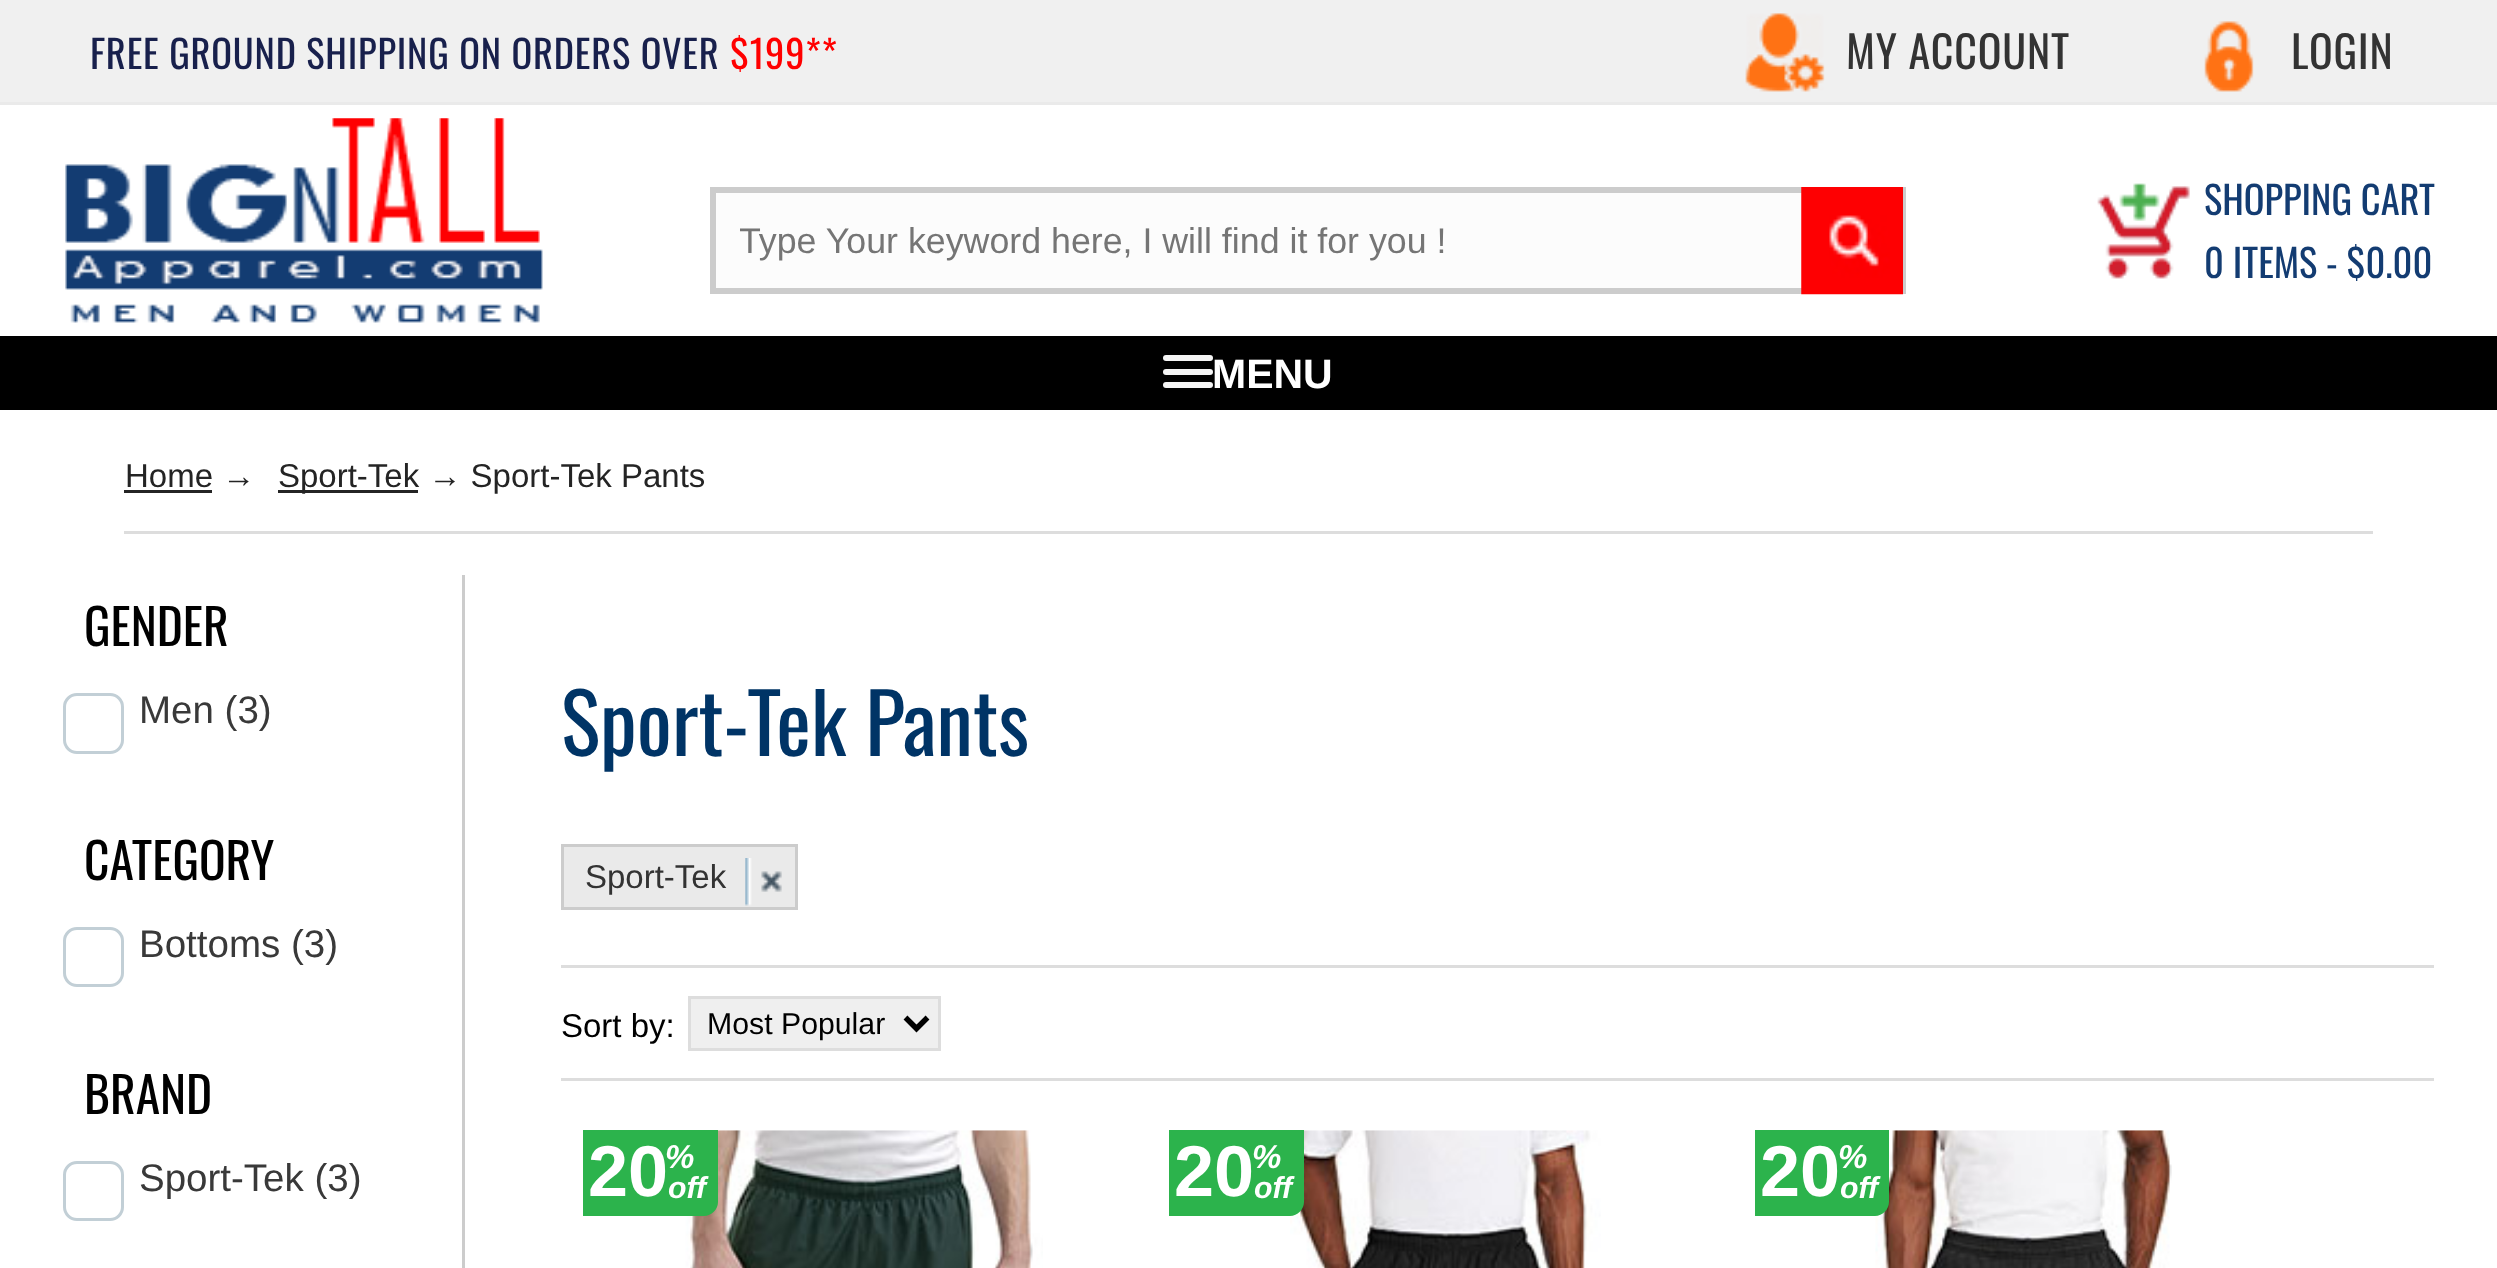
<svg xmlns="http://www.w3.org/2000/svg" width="2497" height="1268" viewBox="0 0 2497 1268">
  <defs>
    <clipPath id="clip1"><path d="M740 220h1160v41H740z"/></clipPath>
  </defs>
  <rect width="100%" height="100%" fill="#fff"/>
  <path d="M0 0h2497v102H0z" fill="#f0f0f0"/>
  <path d="M0 102h2497v3H0z" fill="#eaeaea"/>
  <image x="1745" y="13" width="80" height="79" href="img/1.png"/>
  <image x="2204" y="21" width="50" height="71" href="img/2.png"/>
  <image x="65" y="118" width="478" height="205" href="img/3.png"/>
  <path d="M716 193h1086v95H716z" fill="#fcfcfc"/>
  <path d="M713 190h1190v101H713z" fill="none" stroke="#ccc" stroke-width="6"/>
  <image x="1801" y="187" width="102" height="108" href="img/4.png"/>
  <image x="2097" y="183" width="93" height="96" href="img/5.png"/>
  <path d="M0 336h2497v74H0z" fill="#000"/>
  <rect x="1163" y="355" width="50" height="6" rx="3" fill="#f5f5f5"/>
  <rect x="1163" y="369" width="50" height="6" rx="3" fill="#f5f5f5"/>
  <rect x="1163" y="382" width="50" height="6" rx="3" fill="#f5f5f5"/>
  <path d="M124 531h2249v3H124z" fill="#ddd"/>
  <path d="M124 490h88v3H124z" fill="#242424"/>
  <path d="M278 490h140v3H278z" fill="#242424"/>
  <path d="M462 575h3v693H462z" fill="#ccc"/>
  <rect x="64.5" y="694.5" width="58" height="58" rx="12.5" fill="none" stroke="#c2cfd6" stroke-width="3"/>
  <rect x="64.5" y="928.5" width="58" height="57" rx="12.5" fill="none" stroke="#c2cfd6" stroke-width="3"/>
  <rect x="64.5" y="1162.5" width="58" height="57" rx="12.5" fill="none" stroke="#c2cfd6" stroke-width="3"/>
  <path d="M564 847h231v60H564z" fill="#eaeaea"/>
  <image x="745" y="858" width="37" height="48" href="img/6.png"/>
  <path d="M562.5 845.5h234v63H562.5z" fill="none" stroke="#ccc" stroke-width="3"/>
  <path d="M561 965h1873v3H561z" fill="#ddd"/>
  <path d="M561 1078h1873v3H561z" fill="#ddd"/>
  <path d="M689.5 997.5h250v52H689.5z" fill="#efefef" stroke="#ddd" stroke-width="3"/>
  <path d="M905.5 1017.5L916.5 1028.5L927.5 1017.5" fill="none" stroke="#000" stroke-width="5.5"/>
  <image x="685" y="1130" width="358" height="138" href="img/7.png"/>
  <path d="M583 1130H718V1202C718 1209.5 711.5 1216 704 1216H583Z" fill="#2cb34c"/>
  <image x="1290" y="1130" width="311" height="138" href="img/8.png"/>
  <path d="M1169 1130H1304V1202C1304 1209.5 1297.5 1216 1290 1216H1169Z" fill="#2cb34c"/>
  <image x="1875" y="1130" width="297" height="138" href="img/9.png"/>
  <path d="M1755 1130H1889V1202C1889 1209.5 1882.5 1216 1875 1216H1755Z" fill="#2cb34c"/>
  <text x="90" y="69" font-family="Oswald" font-size="38.5" letter-spacing="0.8" fill="#18204c">FREE GROUND SHIPPING ON ORDERS OVER</text>
  <text x="730" y="69" font-family="Oswald" font-size="38.5" letter-spacing="0.8" fill="#f00">$199**</text>
  <g font-family="Oswald" font-size="44" letter-spacing="0.8" fill="#333">
    <text x="1846" y="69">MY ACCOUNT</text>
    <text x="2291" y="69">LOGIN</text>
  </g>
  <g clip-path="url(#clip1)">
    <text x="739" y="253" font-family="Liberation Sans" font-size="35.75" fill="#757575">Type Your keyword here, I will find it for you !</text>
  </g>
  <g font-family="Oswald" font-size="38.5" fill="#133c72">
    <text x="2204" y="215">SHOPPING CART</text>
    <text x="2204" y="278">0 ITEMS - $0.00</text>
  </g>
  <text x="1212" y="388" font-family="Liberation Sans" font-size="41" font-weight="bold" fill="#fff">MENU</text>
  <g font-family="Liberation Sans" font-size="33" fill="#242424">
    <text x="125" y="487">Home →</text>
    <text x="278" y="487">Sport-Tek → Sport-Tek Pants</text>
  </g>
  <text x="84" y="646" font-family="Oswald" font-size="49.5" fill="#000">GENDER</text>
  <text x="139" y="723" font-family="Liberation Sans" font-size="38.5" fill="#393939">Men (3)</text>
  <text x="84" y="880" font-family="Oswald" font-size="49.5" fill="#000">CATEGORY</text>
  <text x="139" y="957" font-family="Liberation Sans" font-size="38.5" fill="#393939">Bottoms (3)</text>
  <text x="84" y="1114" font-family="Oswald" font-size="49.5" fill="#000">BRAND</text>
  <text x="139" y="1191" font-family="Liberation Sans" font-size="38.5" fill="#393939">Sport-Tek (3)</text>
  <text x="561" y="756" font-family="Oswald" font-size="82.5" fill="#003466">Sport-Tek Pants</text>
  <text x="585" y="888" font-family="Liberation Sans" font-size="33" fill="#333">Sport-Tek</text>
  <text x="561" y="1037" font-family="Liberation Sans" font-size="33" fill="#000">Sort by:</text>
  <text x="707" y="1034" font-family="Liberation Sans" font-size="30.25" fill="#000">Most Popular</text>
  <text x="588" y="1196" font-family="Liberation Sans" font-size="72" font-weight="bold" fill="#fff">20</text>
  <text x="665" y="1168" font-family="Liberation Sans" font-size="33" font-weight="bold" font-style="italic" fill="#fff">%</text>
  <text x="668" y="1198" font-family="Liberation Sans" font-size="30.25" font-weight="bold" font-style="italic" fill="#fff">off</text>
  <text x="1174" y="1196" font-family="Liberation Sans" font-size="72" font-weight="bold" fill="#fff">20</text>
  <text x="1252" y="1168" font-family="Liberation Sans" font-size="33" font-weight="bold" font-style="italic" fill="#fff">%</text>
  <text x="1254" y="1198" font-family="Liberation Sans" font-size="30.25" font-weight="bold" font-style="italic" fill="#fff">off</text>
  <text x="1760" y="1196" font-family="Liberation Sans" font-size="72" font-weight="bold" fill="#fff">20</text>
  <text x="1838" y="1168" font-family="Liberation Sans" font-size="33" font-weight="bold" font-style="italic" fill="#fff">%</text>
  <text x="1840" y="1198" font-family="Liberation Sans" font-size="30.25" font-weight="bold" font-style="italic" fill="#fff">off</text>
</svg>
